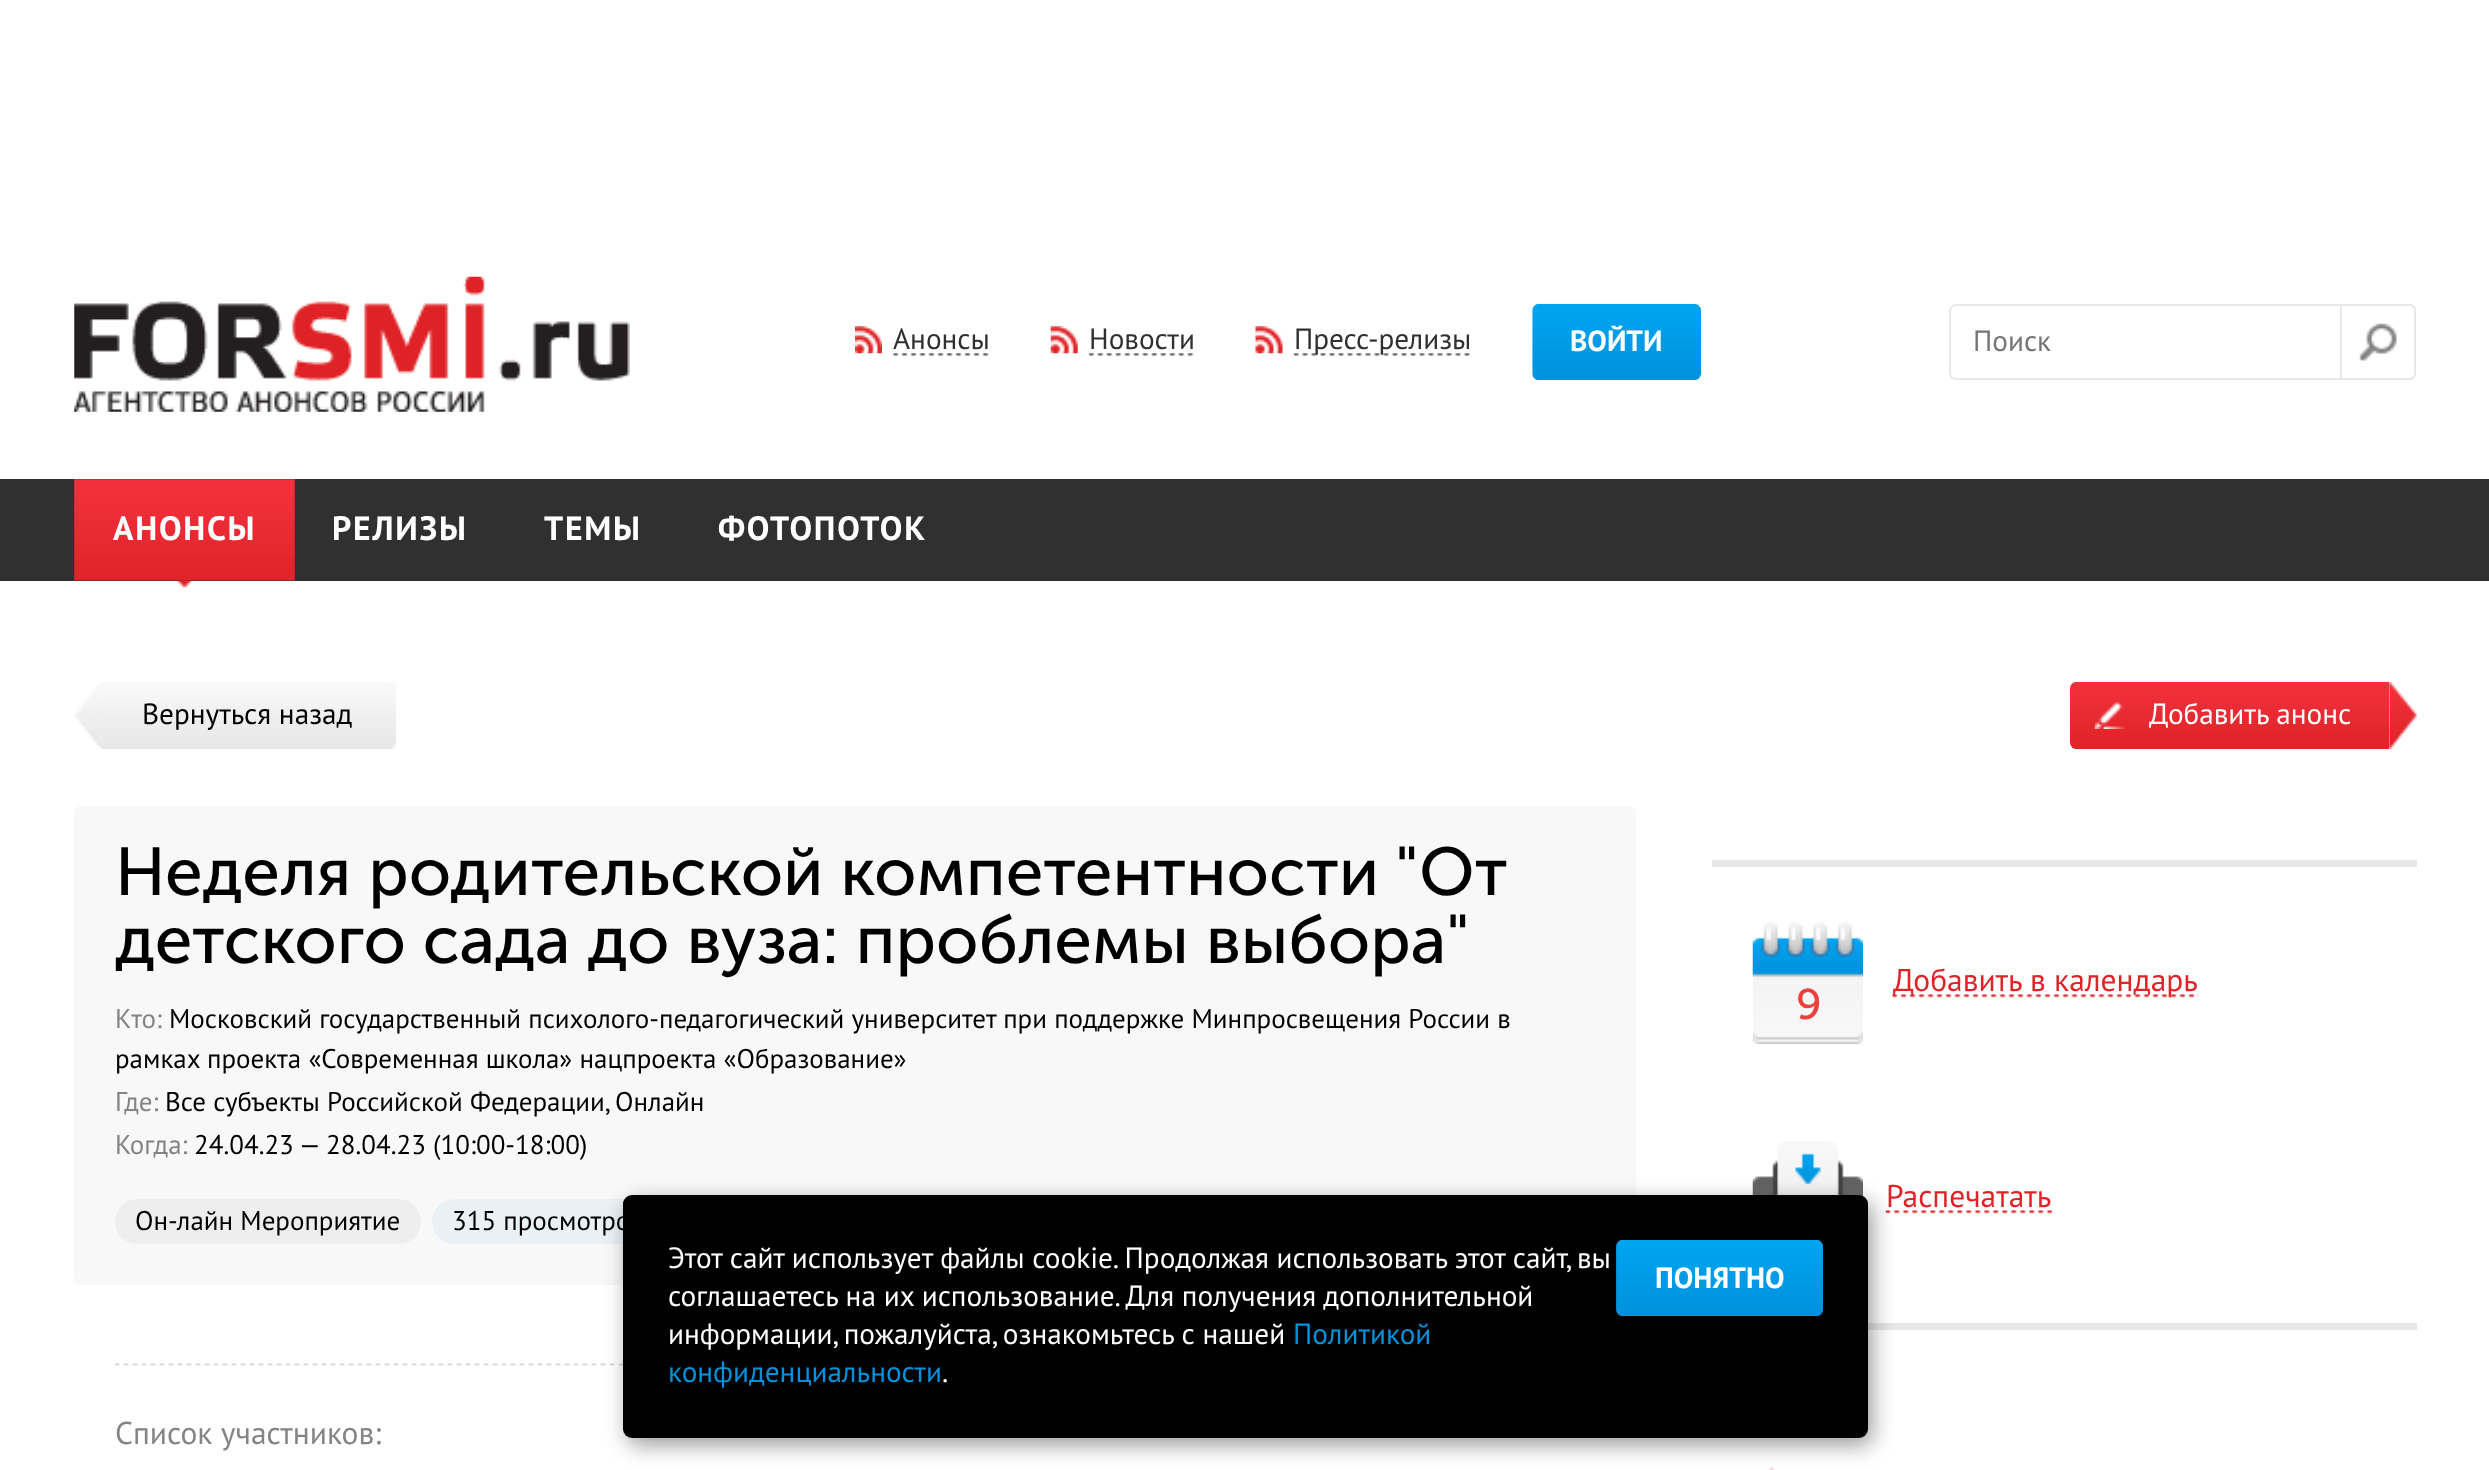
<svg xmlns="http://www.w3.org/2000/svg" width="2489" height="1470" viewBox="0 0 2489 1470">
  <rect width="100%" height="100%" fill="#fff"/>
  <image x="74" y="276" width="556" height="136" href="img/1.png"/>
  <image x="855" y="326" width="27" height="28" href="img/2.png"/>
  <image x="1050" y="326" width="28" height="28" href="img/3.png"/>
  <image x="1255" y="326" width="28" height="28" href="img/4.png"/>
  <image x="1532" y="303" width="169" height="78" href="img/5.png"/>
  <image x="893" y="353" width="96" height="4" href="img/6.png"/>
  <image x="1089" y="353" width="105" height="4" href="img/7.png"/>
  <image x="1293" y="353" width="177" height="4" href="img/8.png"/>
  <path d="M1956 305H2341V379H1956C1952.5 379 1950 376.5 1950 373V311C1950 307.5 1952.5 305 1956 305Z" fill="none" stroke="#e7e7e7" stroke-width="2"/>
  <image x="2359" y="323" width="38" height="38" href="img/9.png"/>
  <path d="M2342 304H2410C2413 304 2416 307 2416 310V374C2416 377 2413 380 2410 380H2342ZM2342 306H2410C2412 306 2414 308 2414 310V374C2414 376 2412 378 2410 378H2342Z" fill="#e7e7e7" fill-rule="evenodd"/>
  <path d="M0 479h2489v102H0z" fill="#303030"/>
  <image x="74" y="479" width="221" height="102" href="img/10.png"/>
  <image x="177" y="580" width="15" height="8" href="img/11.png"/>
  <image x="74" y="684" width="28" height="65" href="img/12.png"/>
  <image x="101" y="682" width="295" height="67" href="img/13.png"/>
  <rect x="74" y="806" width="1562" height="479" rx="7" fill="#f8f8f8"/>
  <rect x="115" y="1199" width="306" height="45" rx="22.5" fill="#efeeee"/>
  <rect x="432" y="1199" width="232" height="45" rx="22.5" fill="#e9f1f5"/>
  <image x="114" y="1363" width="509" height="3" href="img/14.png"/>
  <image x="2070" y="681" width="320" height="69" href="img/15.png"/>
  <image x="2094" y="702" width="30" height="27" href="img/16.png"/>
  <image x="2389" y="681" width="28" height="69" href="img/17.png"/>
  <path d="M1712 860h705v7H1712z" fill="#e7e7e7"/>
  <image x="1752" y="922" width="111" height="122" href="img/18.png"/>
  <image x="1892" y="994" width="307" height="4" href="img/19.png"/>
  <image x="1752" y="1141" width="111" height="55" href="img/20.png"/>
  <image x="1885" y="1210" width="167" height="4" href="img/21.png"/>
  <path d="M1868 1323h549v7H1868z" fill="#e7e7e7"/>
  <image x="1768" y="1466" width="6" height="4" href="img/22.png"/>
  <rect x="628" y="1202" width="1244" height="243" rx="9" fill="#00000066" filter="blur(11px)"/>
  <rect x="623" y="1195" width="1245" height="243" rx="9" fill="#000"/>
  <image x="1616" y="1240" width="207" height="77" href="img/23.png"/>
  <g font-family="PT Sans" font-size="29.25" fill="#303030">
    <text x="893" y="349">Анонсы</text>
    <text x="1089" y="349">Новости</text>
    <text x="1294" y="349">Пресс-релизы</text>
  </g>
  <text x="1570" y="351" font-family="PT Sans" font-size="29.25" font-weight="bold" fill="#fff">ВОЙТИ</text>
  <text x="1973" y="351" font-family="PT Sans" font-size="29.25" fill="#757575">Поиск</text>
  <g font-family="PT Sans" font-size="33.75" font-weight="bold" letter-spacing="1.75" fill="#fff">
    <text x="113" y="540">АНОНСЫ</text>
    <text x="332" y="540">РЕЛИЗЫ</text>
    <text x="544" y="540">ТЕМЫ</text>
    <text x="718" y="540">ФОТОПОТОК</text>
  </g>
  <text x="142" y="724" font-family="PT Sans" font-size="29.25" fill="#000">Вернуться назад</text>
  <g font-family="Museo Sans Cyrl" font-size="67.5" fill="#000">
    <text x="115" y="895">Неделя родительской компетентности "От</text>
    <text x="115" y="963">детского сада до вуза: проблемы выбора"</text>
  </g>
  <text x="115" y="1028" font-family="PT Sans" font-size="27" fill="#848485">Кто:</text>
  <g font-family="PT Sans" font-size="27" fill="#000">
    <text x="169" y="1028">Московский государственный психолого-педагогический университет при поддержке Минпросвещения России в</text>
    <text x="115" y="1068">рамках проекта «Современная школа» нацпроекта «Образование»</text>
  </g>
  <text x="115" y="1111" font-family="PT Sans" font-size="27" fill="#848485">Где:</text>
  <text x="165" y="1111" font-family="PT Sans" font-size="27" fill="#000">Все субъекты Российской Федерации, Онлайн</text>
  <text x="115" y="1154" font-family="PT Sans" font-size="27" fill="#848485">Когда:</text>
  <g font-family="PT Sans" font-size="27" fill="#000">
    <text x="194" y="1154">24.04.23 — 28.04.23 (10:00-18:00)</text>
    <text x="135" y="1230">Он-лайн Мероприятие</text>
    <text x="452" y="1230">315 просмотро</text>
  </g>
  <text x="115" y="1444" font-family="PT Sans" font-size="31.5" fill="#848485">Список участников:</text>
  <text x="2149" y="724" font-family="PT Sans" font-size="29.25" fill="#fff">Добавить анонс</text>
  <text x="1893" y="991" font-family="PT Sans" font-size="31.5" fill="#df2327">Добавить в календарь</text>
  <text x="1796" y="1019" font-family="Museo Sans Cyrl" font-size="43" fill="#eb4240">9</text>
  <text x="1886" y="1207" font-family="PT Sans" font-size="31.5" fill="#df2327">Распечатать</text>
  <g font-family="PT Sans" font-size="29.25" fill="#fff">
    <text x="668" y="1268">Этот сайт использует файлы cookie. Продолжая использовать этот сайт, вы</text>
    <text x="668" y="1306">соглашаетесь на их использование. Для получения дополнительной</text>
    <text x="668" y="1344">информации, пожалуйста, ознакомьтесь с нашей</text>
  </g>
  <g font-family="PT Sans" font-size="29.25" fill="#0092dd">
    <text x="1293" y="1344">Политикой</text>
    <text x="668" y="1382">конфиденциальности</text>
  </g>
  <text x="942" y="1382" font-family="PT Sans" font-size="29.25" fill="#fff">.</text>
  <text x="1655" y="1288" font-family="PT Sans" font-size="29.25" font-weight="bold" fill="#fff">ПОНЯТНО</text>
</svg>
